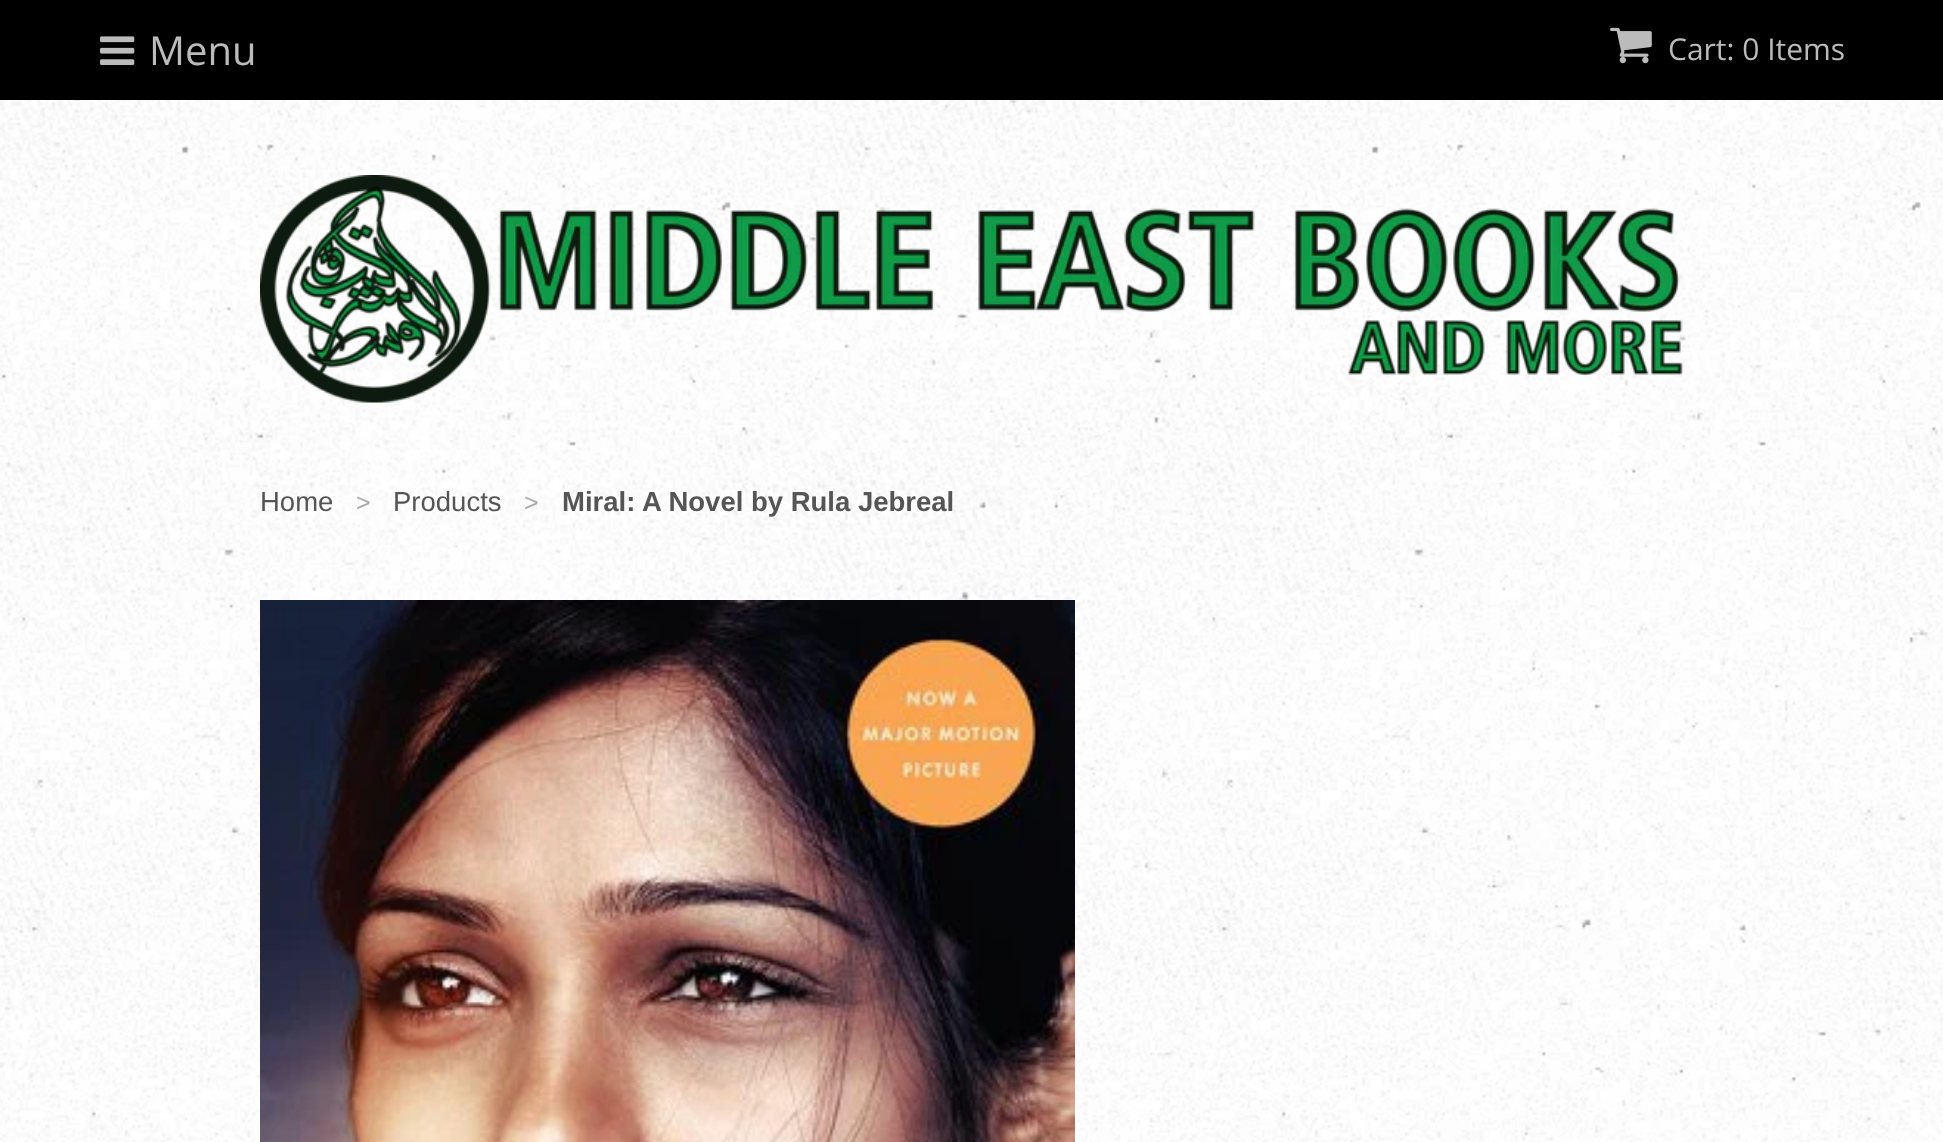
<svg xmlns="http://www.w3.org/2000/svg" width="1943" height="1142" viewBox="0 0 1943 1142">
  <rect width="100%" height="100%" fill="#fff"/>
  <image x="0" y="100" width="1943" height="1042" href="img/1.png"/>
  <path d="M0 0h1943v100H0z" fill="#000"/>
  <image x="100" y="36" width="35" height="29" href="img/2.png"/>
  <image x="1610" y="27" width="42" height="37" href="img/3.png"/>
  <image x="260" y="175" width="1423" height="228" href="img/4.png"/>
  <image x="260" y="600" width="815" height="542" href="img/5.png"/>
  <text x="149" y="65" font-family="Open Sans" font-size="40" fill="#bbb">Menu</text>
  <text x="1668" y="60" font-family="Open Sans" font-size="30" fill="#bbb">Cart: 0 Items</text>
  <text x="260" y="511" font-family="Liberation Sans" font-size="27.5" fill="#555">Home</text>
  <text x="356" y="511" font-family="Liberation Sans" font-size="25" fill="#a9a9a9">&gt;</text>
  <text x="393" y="511" font-family="Liberation Sans" font-size="27.5" fill="#555">Products</text>
  <text x="524" y="511" font-family="Liberation Sans" font-size="25" fill="#a9a9a9">&gt;</text>
  <text x="562" y="511" font-family="Liberation Sans" font-size="27.5" font-weight="bold" fill="#555">Miral: A Novel by Rula Jebreal</text>
</svg>
